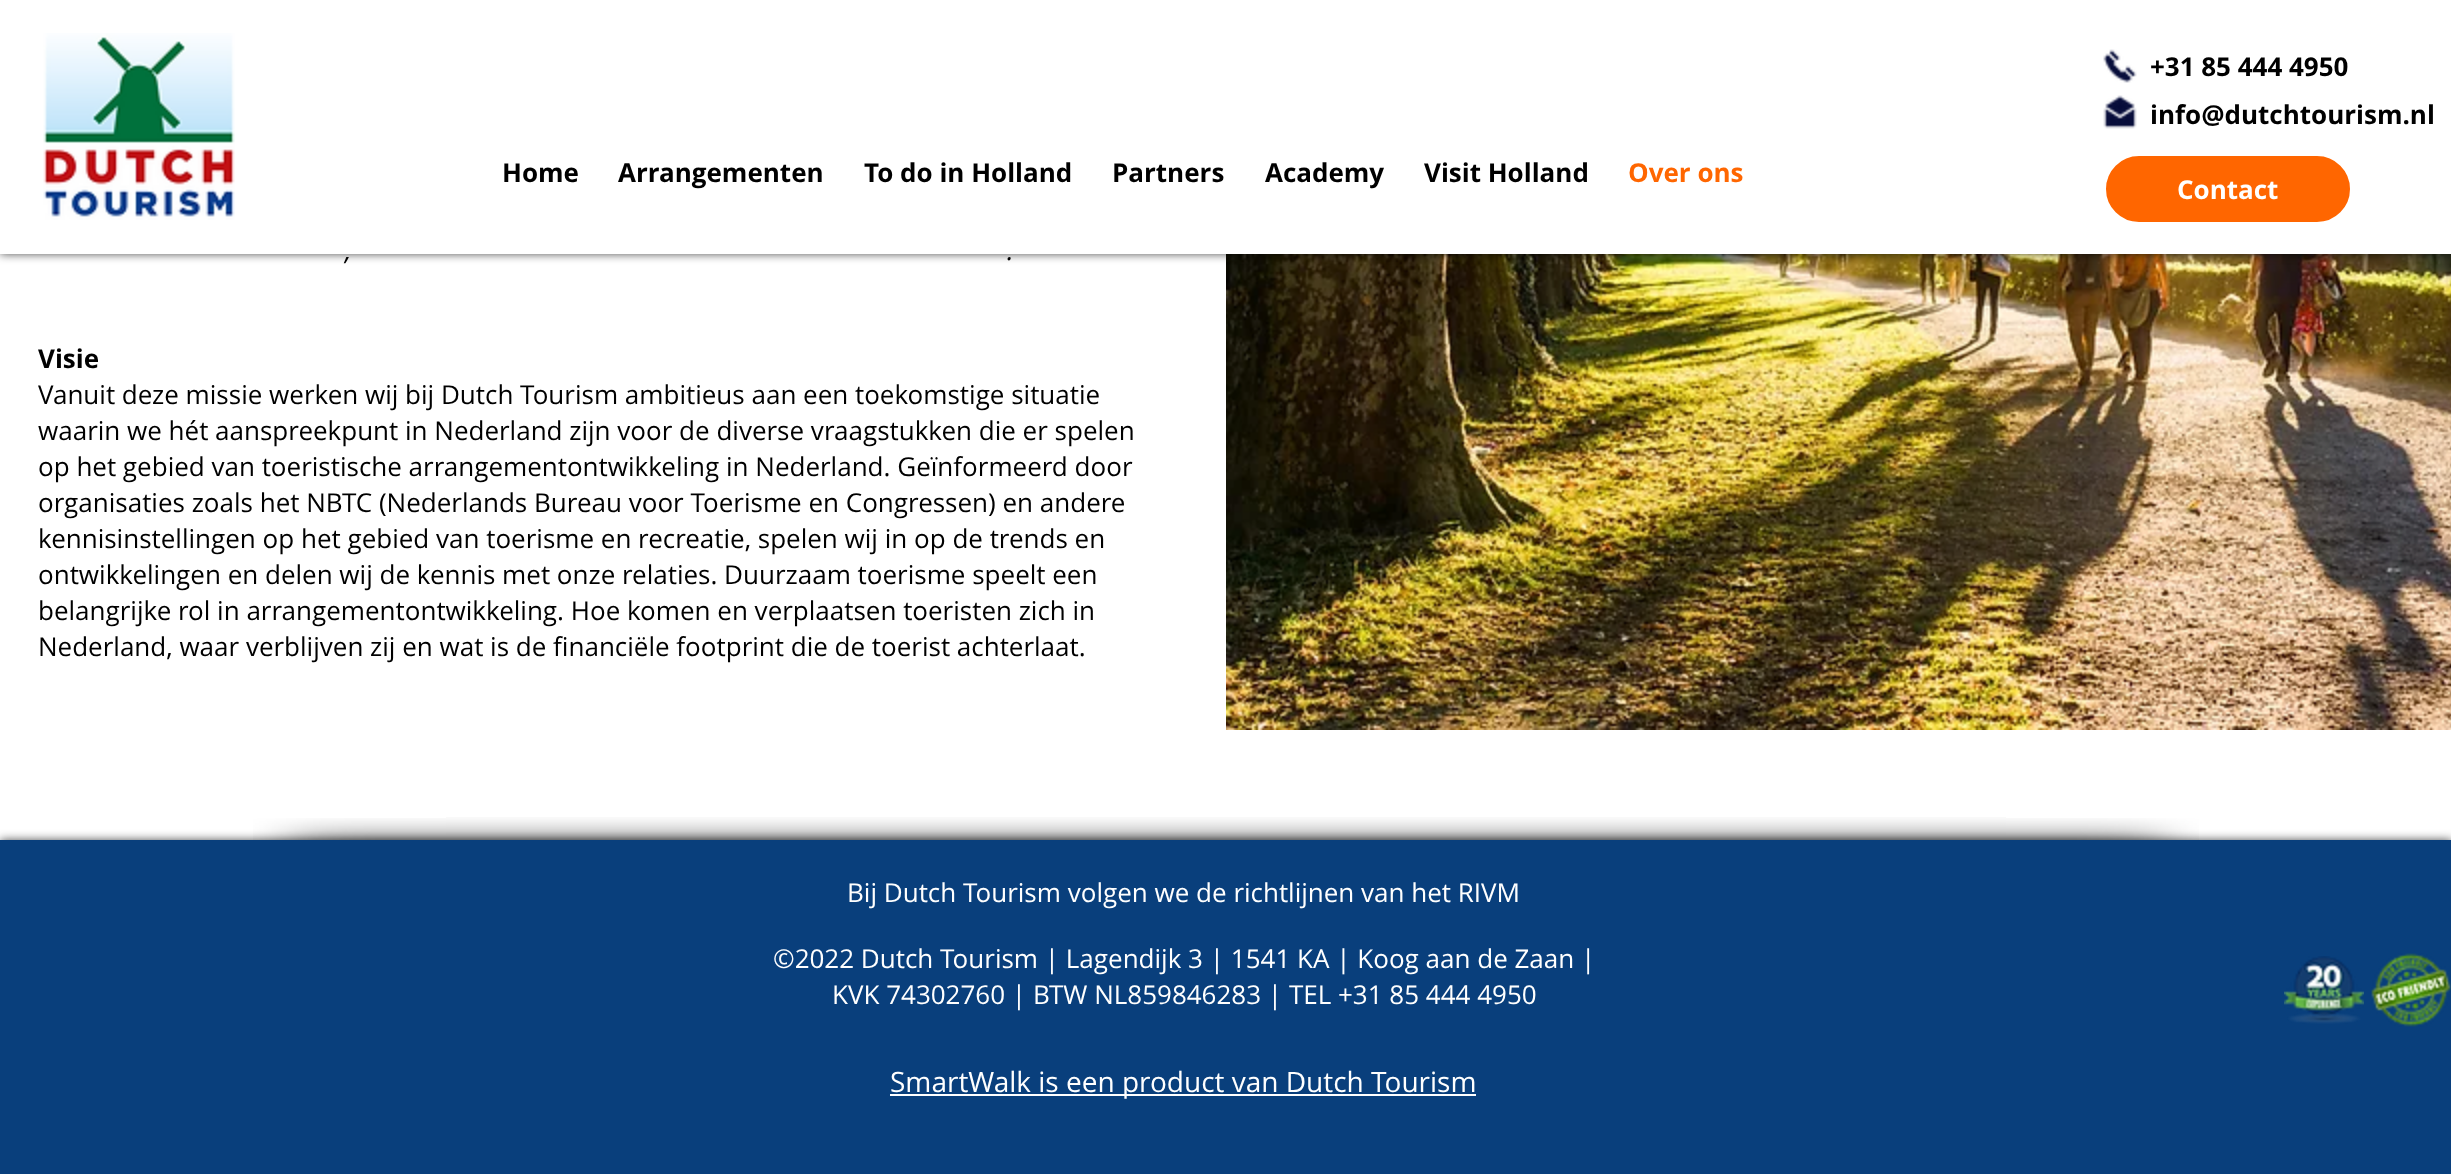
<svg xmlns="http://www.w3.org/2000/svg" width="2451" height="1174" viewBox="0 0 2451 1174">
  <rect width="100%" height="100%" fill="#fff"/>
  <image x="1226" y="254" width="1225" height="476" href="img/4.png"/>
  <path d="M0 0h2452v254H0z" fill="#000000b3" filter="blur(5px)"/>
  <path d="M0 0h2451v254H0z" fill="#fff"/>
  <image x="43" y="33" width="192" height="187" href="img/1.png"/>
  <image x="2103" y="49" width="34" height="34" href="img/2.png"/>
  <image x="2103" y="95" width="34" height="34" href="img/3.png"/>
  <rect x="2104" y="154" width="248" height="70" rx="35" fill="#f60" stroke="#fff" stroke-width="4"/>
  <path d="M0 840h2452v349H0z" fill="#000000b3" filter="blur(5px)"/>
  <path d="M0 840h2451v334H0z" fill="#093f7c"/>
  <image x="253" y="818" width="193" height="22" href="img/5.png"/>
  <image x="446" y="817" width="1560" height="23" href="img/6.png"/>
  <image x="2006" y="818" width="193" height="22" href="img/7.png"/>
  <image x="2284" y="956" width="80" height="68" href="img/8.png"/>
  <image x="2371" y="953" width="80" height="74" href="img/9.png"/>
  <path d="M890 1094h586v2H890z" fill="#fff"/>
  <g font-family="Open Sans" font-size="26" font-weight="bold" fill="#000">
    <text x="2150" y="76">+31 85 444 4950</text>
    <text x="2150" y="124">info@dutchtourism.nl</text>
    <text x="502" y="182">Home</text>
    <text x="618" y="182">Arrangementen</text>
    <text x="864" y="182">To do in Holland</text>
    <text x="1112" y="182">Partners</text>
    <text x="1265" y="182">Academy</text>
    <text x="1424" y="182">Visit Holland</text>
  </g>
  <text x="1628" y="182" font-family="Open Sans" font-size="26" font-weight="bold" fill="#f60">Over ons</text>
  <text x="2177" y="199" font-family="Open Sans" font-size="26" font-weight="bold" fill="#fff">Contact</text>
  <g font-family="Open Sans" font-size="26" font-style="italic" fill="#000">
    <text x="345" y="260">,</text>
    <text x="1007" y="260">.</text>
  </g>
  <text x="38" y="368" font-family="Open Sans" font-size="26" font-weight="bold" fill="#000">Visie</text>
  <g font-family="Open Sans" font-size="26" fill="#000">
    <text x="38" y="404">Vanuit deze missie werken wij bij Dutch Tourism ambitieus aan een toekomstige situatie</text>
    <text x="38" y="440">waarin we hét aanspreekpunt in Nederland zijn voor de diverse vraagstukken die er spelen</text>
    <text x="38" y="476">op het gebied van toeristische arrangementontwikkeling in Nederland. Geïnformeerd door</text>
    <text x="38" y="512">organisaties zoals het NBTC (Nederlands Bureau voor Toerisme en Congressen) en andere</text>
    <text x="38" y="548">kennisinstellingen op het gebied van toerisme en recreatie, spelen wij in op de trends en</text>
    <text x="38" y="584">ontwikkelingen en delen wij de kennis met onze relaties. Duurzaam toerisme speelt een</text>
    <text x="38" y="620">belangrijke rol in arrangementontwikkeling. Hoe komen en verplaatsen toeristen zich in</text>
    <text x="38" y="656">Nederland, waar verblijven zij en wat is de financiële footprint die de toerist achterlaat.</text>
  </g>
  <g font-family="Open Sans" font-size="26" fill="#fff">
    <text x="847" y="902">Bij Dutch Tourism volgen we de richtlijnen van het RIVM</text>
    <text x="773" y="968">©2022 Dutch Tourism | Lagendijk 3 | 1541 KA | Koog aan de Zaan |</text>
    <text x="832" y="1004">KVK 74302760 | BTW NL859846283 | TEL +31 85 444 4950</text>
  </g>
  <text x="890" y="1092" font-family="Open Sans" font-size="28" fill="#fff">SmartWalk is een product van Dutch Tourism</text>
</svg>
